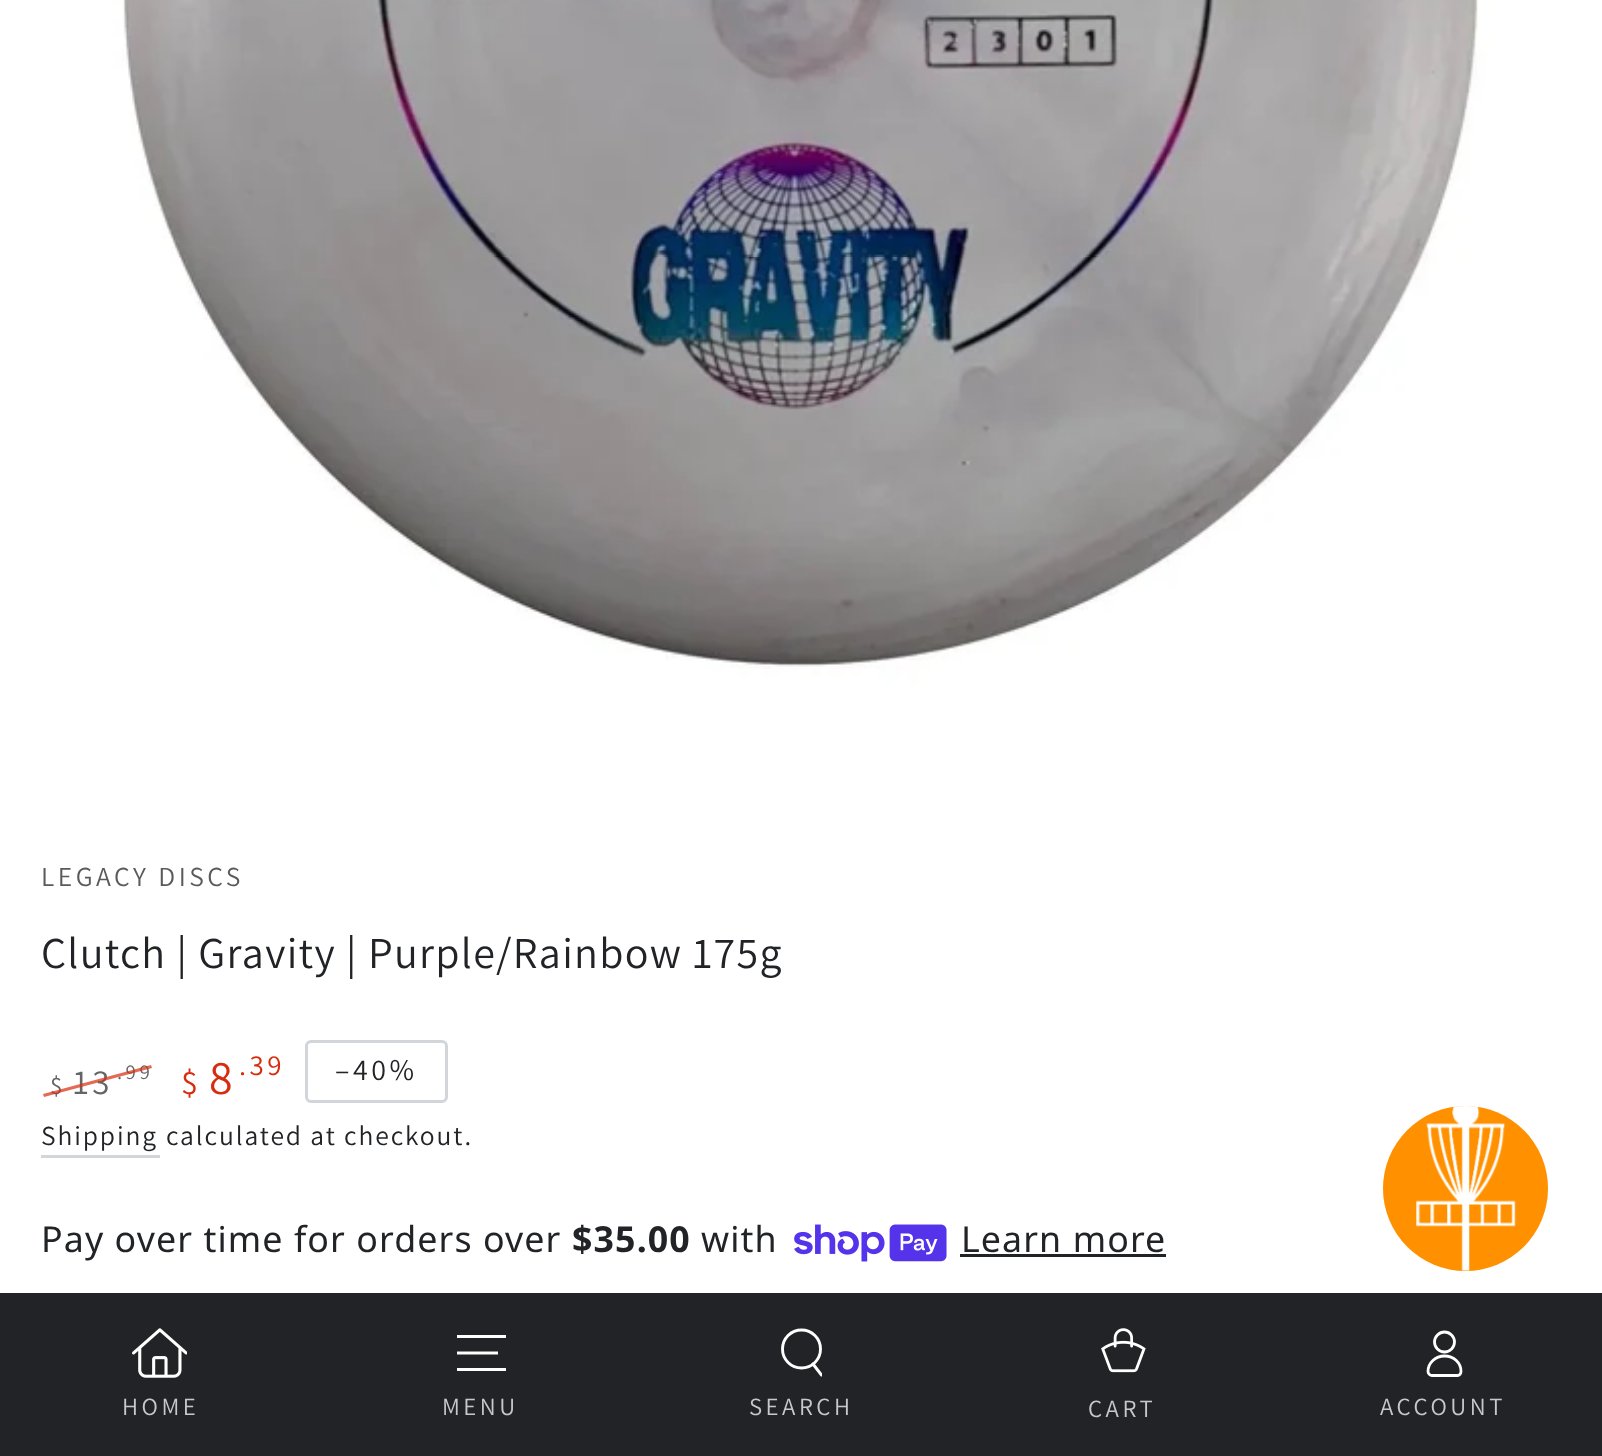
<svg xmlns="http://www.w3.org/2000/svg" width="1602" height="1456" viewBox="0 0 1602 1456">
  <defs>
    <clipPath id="clip1"><path d="M457 1328h49v50H457z"/></clipPath>
    <clipPath id="clip2"><path d="M781 1328h41v50H781z"/></clipPath>
  </defs>
  <rect width="100%" height="100%" fill="#fff"/>
  <image x="41" y="0" width="1521" height="745" href="img/1.png"/>
  <rect x="306.5" y="1041.5" width="140" height="60" rx="4.5" fill="none" stroke="#d2d5d9" stroke-width="3"/>
  <path d="M41 1155h119v3H41z" fill="#d2d5d9"/>
  <image x="794" y="1224" width="153" height="38" href="img/2.png"/>
  <path d="M960 1254h206v3H960z" fill="#212326"/>
  <circle cx="1465.5" cy="1188.5" r="82.5" fill="#ff9000"/>
  <image x="1416" y="1106" width="100" height="165" href="img/3.png"/>
  <path d="M0 1293h1602v163H0z" fill="#212326"/>
  <image x="132" y="1328" width="55" height="50" href="img/4.png"/>
  <g clip-path="url(#clip1)">
    <path d="M456.5 1369.5H506M456.5 1353H498M456.5 1336.5H506" fill="none" stroke="#fff" stroke-width="3.1"/>
  </g>
  <circle cx="801.5" cy="1349" r="19" fill="none" stroke="#fff" stroke-width="2.9"/>
  <g clip-path="url(#clip2)">
    <path d="M813 1364L821.5 1375" fill="none" stroke="#fff" stroke-width="2.9" stroke-linecap="round"/>
  </g>
  <image x="1101" y="1328" width="45" height="45" href="img/5.png"/>
  <path d="M1444.5 1356C1435.5 1356 1428 1363 1428 1371.5C1428 1373.5 1430 1375.5 1432 1375.5H1457.5C1459.5 1375.5 1461 1373.5 1461 1371.5C1461 1363 1454 1356 1444.5 1356Z" fill="none" stroke="#fff" stroke-width="2.8"/>
  <circle cx="1444.5" cy="1342" r="10" fill="none" stroke="#fff" stroke-width="2.8"/>
  <text x="41" y="886" font-family="Assistant" font-size="27.5" letter-spacing="3.5" fill="#595a5c">LEGACY DISCS</text>
  <text x="41" y="968" font-family="Assistant" font-size="44" letter-spacing="1.3" fill="#212326">Clutch | Gravity | Purple/Rainbow 175g</text>
  <text x="50" y="1094" font-family="Assistant" font-size="25" letter-spacing="3.5" fill="#646567">$</text>
  <text x="73" y="1094" font-family="Assistant" font-size="35" letter-spacing="3.5" fill="#646567">13</text>
  <text x="117" y="1079" font-family="Assistant" font-size="21" letter-spacing="3.5" fill="#646567">.99</text>
  <path d="M43 1094L151 1065L152 1068L44 1097Z" fill="#d72c0db3"/>
  <text x="181" y="1094" font-family="Assistant" font-size="34" letter-spacing="3.5" fill="#d72c0d">$</text>
  <text x="209" y="1094" font-family="Assistant" font-size="48" letter-spacing="3.5" fill="#d72c0d">8</text>
  <text x="239" y="1075" font-family="Assistant" font-size="29" letter-spacing="3.5" fill="#d72c0d">.39</text>
  <text x="335" y="1080" font-family="Assistant" font-size="30" letter-spacing="3.5" fill="#212326">–40%</text>
  <g font-family="Assistant" font-size="27.5" letter-spacing="1.9" fill="#212326">
    <text x="41" y="1145">Shipping</text>
    <text x="166" y="1145">calculated at checkout.</text>
  </g>
  <text x="41" y="1252" font-family="Noto Sans" font-size="35.75" letter-spacing="1.1" fill="#212326">Pay over time for orders over</text>
  <text x="572" y="1252" font-family="Noto Sans" font-size="35.75" font-weight="bold" letter-spacing="1.1" fill="#212326">$35.00</text>
  <g font-family="Noto Sans" font-size="35.75" letter-spacing="1.1" fill="#212326">
    <text x="701" y="1252">with</text>
    <text x="961" y="1252">Learn more</text>
  </g>
  <g font-family="Assistant" font-size="24.75" letter-spacing="3.5" fill="#c8c8c9">
    <text x="122" y="1415">HOME</text>
    <text x="442" y="1415">MENU</text>
    <text x="749" y="1415">SEARCH</text>
    <text x="1088" y="1417">CART</text>
    <text x="1380" y="1415">ACCOUNT</text>
  </g>
</svg>
